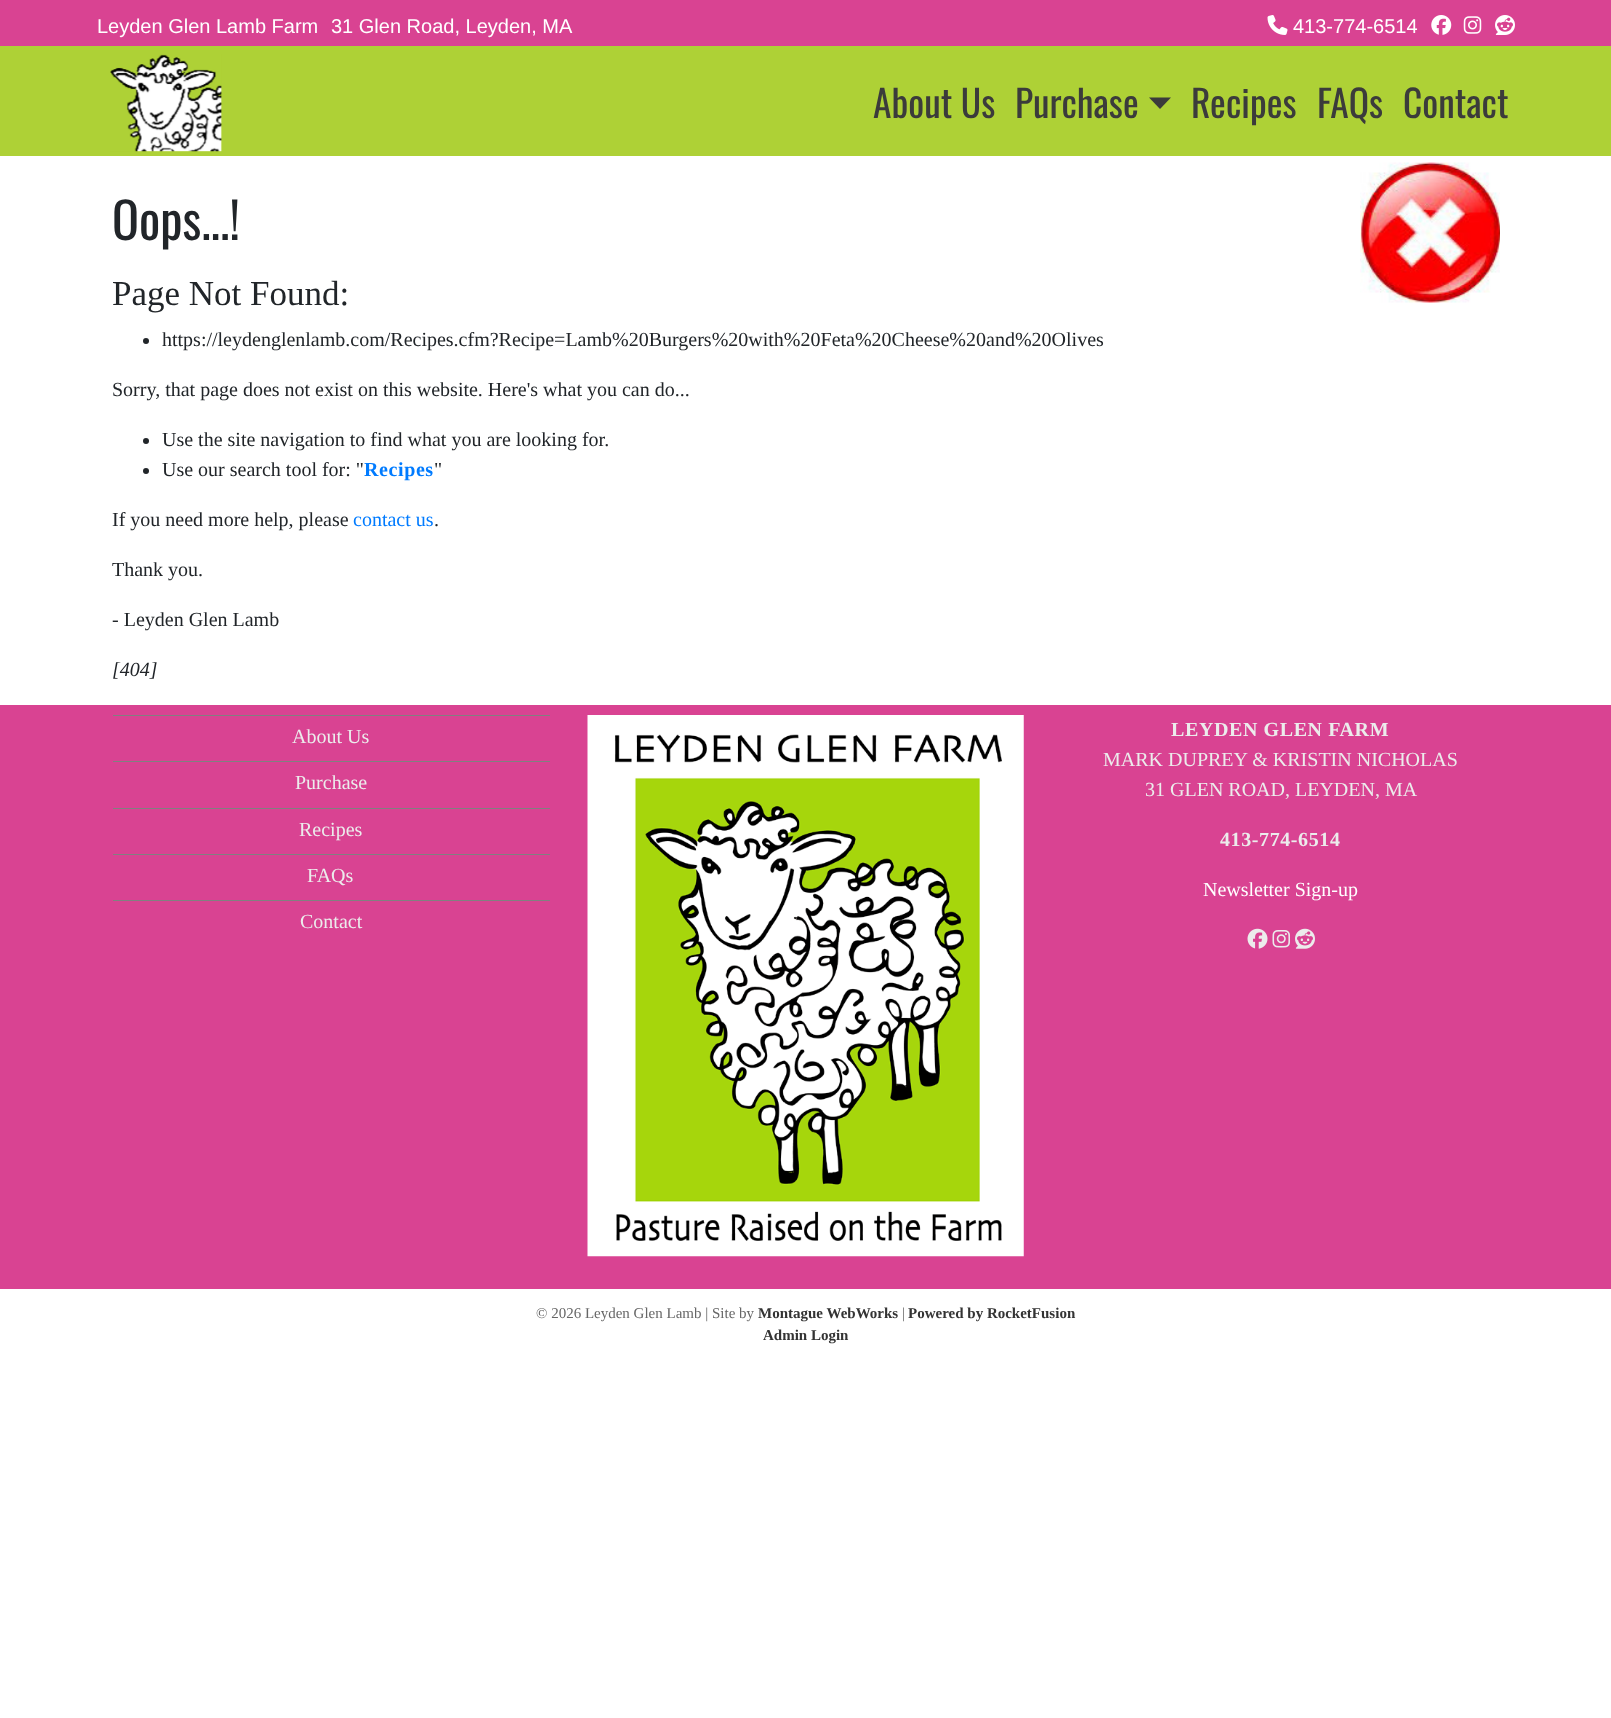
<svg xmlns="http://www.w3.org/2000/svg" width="1611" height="1718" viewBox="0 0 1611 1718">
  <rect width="100%" height="100%" fill="#fff"/>
  <path d="M0 0h1611v46H0z" fill="#d94392"/>
  <image x="1267" y="15" width="21" height="20" href="img/1.png"/>
  <image x="1431" y="15" width="21" height="20" href="img/2.png"/>
  <image x="1463" y="16" width="19" height="18" href="img/3.png"/>
  <image x="1495" y="15" width="20" height="20" href="img/4.png"/>
  <path d="M0 46h1611v110H0z" fill="#aed136"/>
  <image x="110" y="54" width="112" height="98" href="img/5.png"/>
  <path d="M1149 97.5H1171L1160 109Z" fill="#3b3b3b"/>
  <image x="1360" y="162" width="140" height="141" href="img/6.png"/>
  <circle cx="146" cy="341" r="3" fill="#212529"/>
  <circle cx="146" cy="441" r="3" fill="#212529"/>
  <circle cx="146" cy="471" r="3" fill="#212529"/>
  <path d="M0 705h1611v584H0z" fill="#d94392"/>
  <path d="M113 715h437v1H113z" fill="#808080"/>
  <path d="M113 761h437v1H113z" fill="#808080"/>
  <path d="M113 808h437v1H113z" fill="#808080"/>
  <path d="M113 854h437v1H113z" fill="#808080"/>
  <path d="M113 900h437v1H113z" fill="#808080"/>
  <image x="587" y="715" width="437" height="542" href="img/7.png"/>
  <image x="1247" y="928" width="21" height="21" href="img/8.png"/>
  <image x="1272" y="930" width="18" height="18" href="img/9.png"/>
  <image x="1295" y="928" width="20" height="21" href="img/10.png"/>
  <g font-family="Liberation Sans" font-size="20" fill="#fff">
    <text x="97" y="33">Leyden Glen Lamb Farm</text>
    <text x="331" y="33">31 Glen Road, Leyden, MA</text>
    <text x="1293" y="33">413-774-6514</text>
  </g>
  <g font-family="Oswald" font-size="37.5" fill="#3b3b3b">
    <text x="873" y="118">About Us</text>
    <text x="1015" y="118">Purchase</text>
    <text x="1191" y="118">Recipes</text>
    <text x="1317" y="118">FAQs</text>
    <text x="1403" y="118">Contact</text>
  </g>
  <text x="112" y="240" font-family="Oswald" font-size="50" fill="#212529">Oops...!</text>
  <text x="112" y="305" font-family="Liberation Serif" font-size="35" fill="#212529">Page Not Found:</text>
  <g font-family="Liberation Serif" font-size="20" fill="#212529">
    <text x="162" y="346">https://leydenglenlamb.com/Recipes.cfm?Recipe=Lamb%20Burgers%20with%20Feta%20Cheese%20and%20Olives</text>
    <text x="112" y="396">Sorry, that page does not exist on this website. Here's what you can do...</text>
    <text x="162" y="446">Use the site navigation to find what you are looking for.</text>
    <text x="162" y="476">Use our search tool for: "</text>
  </g>
  <text x="364" y="476" font-family="Liberation Serif" font-size="20" font-weight="bold" letter-spacing="0.6" fill="#007bff">Recipes</text>
  <g font-family="Liberation Serif" font-size="20" fill="#212529">
    <text x="434" y="476">"</text>
    <text x="112" y="526">If you need more help, please</text>
  </g>
  <text x="353" y="526" font-family="Liberation Serif" font-size="20" fill="#007bff">contact us</text>
  <g font-family="Liberation Serif" font-size="20" fill="#212529">
    <text x="434" y="526">.</text>
    <text x="112" y="576">Thank you.</text>
    <text x="112" y="626">- Leyden Glen Lamb</text>
  </g>
  <text x="112" y="676" font-family="Liberation Serif" font-size="20" font-style="italic" fill="#212529">[404]</text>
  <g font-family="Liberation Serif" font-size="20" fill="#ececec">
    <text x="292" y="743">About Us</text>
    <text x="295" y="789">Purchase</text>
    <text x="299" y="836">Recipes</text>
    <text x="307" y="882">FAQs</text>
    <text x="300" y="928">Contact</text>
  </g>
  <text x="1171" y="736" font-family="Liberation Serif" font-size="20" font-weight="bold" letter-spacing="0.6" fill="#ececec">LEYDEN GLEN FARM</text>
  <g font-family="Liberation Serif" font-size="20" fill="#ececec">
    <text x="1103" y="766">MARK DUPREY &amp; KRISTIN NICHOLAS</text>
    <text x="1145" y="796">31 GLEN ROAD, LEYDEN, MA</text>
  </g>
  <text x="1220" y="846" font-family="Liberation Serif" font-size="20" font-weight="bold" letter-spacing="0.6" fill="#ececec">413-774-6514</text>
  <text x="1203" y="896" font-family="Liberation Serif" font-size="20" fill="#fff">Newsletter Sign-up</text>
  <text x="536" y="1318" font-family="Liberation Serif" font-size="15" fill="#666">© 2026 Leyden Glen Lamb | Site by</text>
  <text x="758" y="1318" font-family="Liberation Serif" font-size="15" font-weight="bold" fill="#333">Montague WebWorks</text>
  <text x="902" y="1318" font-family="Liberation Serif" font-size="15" fill="#666">|</text>
  <g font-family="Liberation Serif" font-size="15" font-weight="bold" fill="#333">
    <text x="908" y="1318">Powered by RocketFusion</text>
    <text x="763" y="1340">Admin Login</text>
  </g>
</svg>
